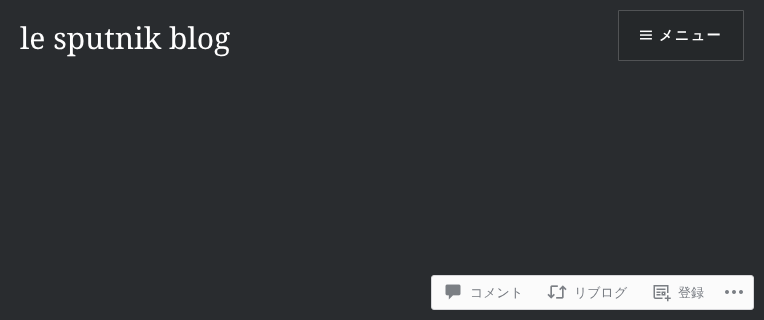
<svg xmlns="http://www.w3.org/2000/svg" width="764" height="320" viewBox="0 0 764 320">
  <rect width="100%" height="100%" fill="#292c2f"/>
  <path d="M618.5 10.5h125v50H618.5z" fill="#25282a" stroke="#515355"/>
  <image x="640" y="30" width="12" height="10" href="img/1.png"/>
  <rect x="431.5" y="275.5" width="322" height="34" rx="2.5" fill="#fbfbfb" stroke="#d8d8db"/>
  <image x="445" y="284" width="16" height="16" href="img/2.png"/>
  <image x="547" y="285" width="20" height="14" href="img/3.png"/>
  <image x="653" y="285" width="18" height="17" href="img/4.png"/>
  <image x="725" y="290" width="18" height="4" href="img/5.png"/>
  <text x="20" y="49" font-family="Noto Serif" font-size="30" fill="#fff">le sputnik blog</text>
  <text x="659" y="40" font-family="WenQuanYi Zen Hei" font-size="14" font-weight="bold" letter-spacing="1.5" fill="#fff">メニュー</text>
  <g font-family="WenQuanYi Zen Hei" font-size="13" font-weight="500" fill="#767a80">
    <text x="470" y="297">コメント</text>
    <text x="574" y="297">リブログ</text>
    <text x="678" y="297">登録</text>
  </g>
</svg>
